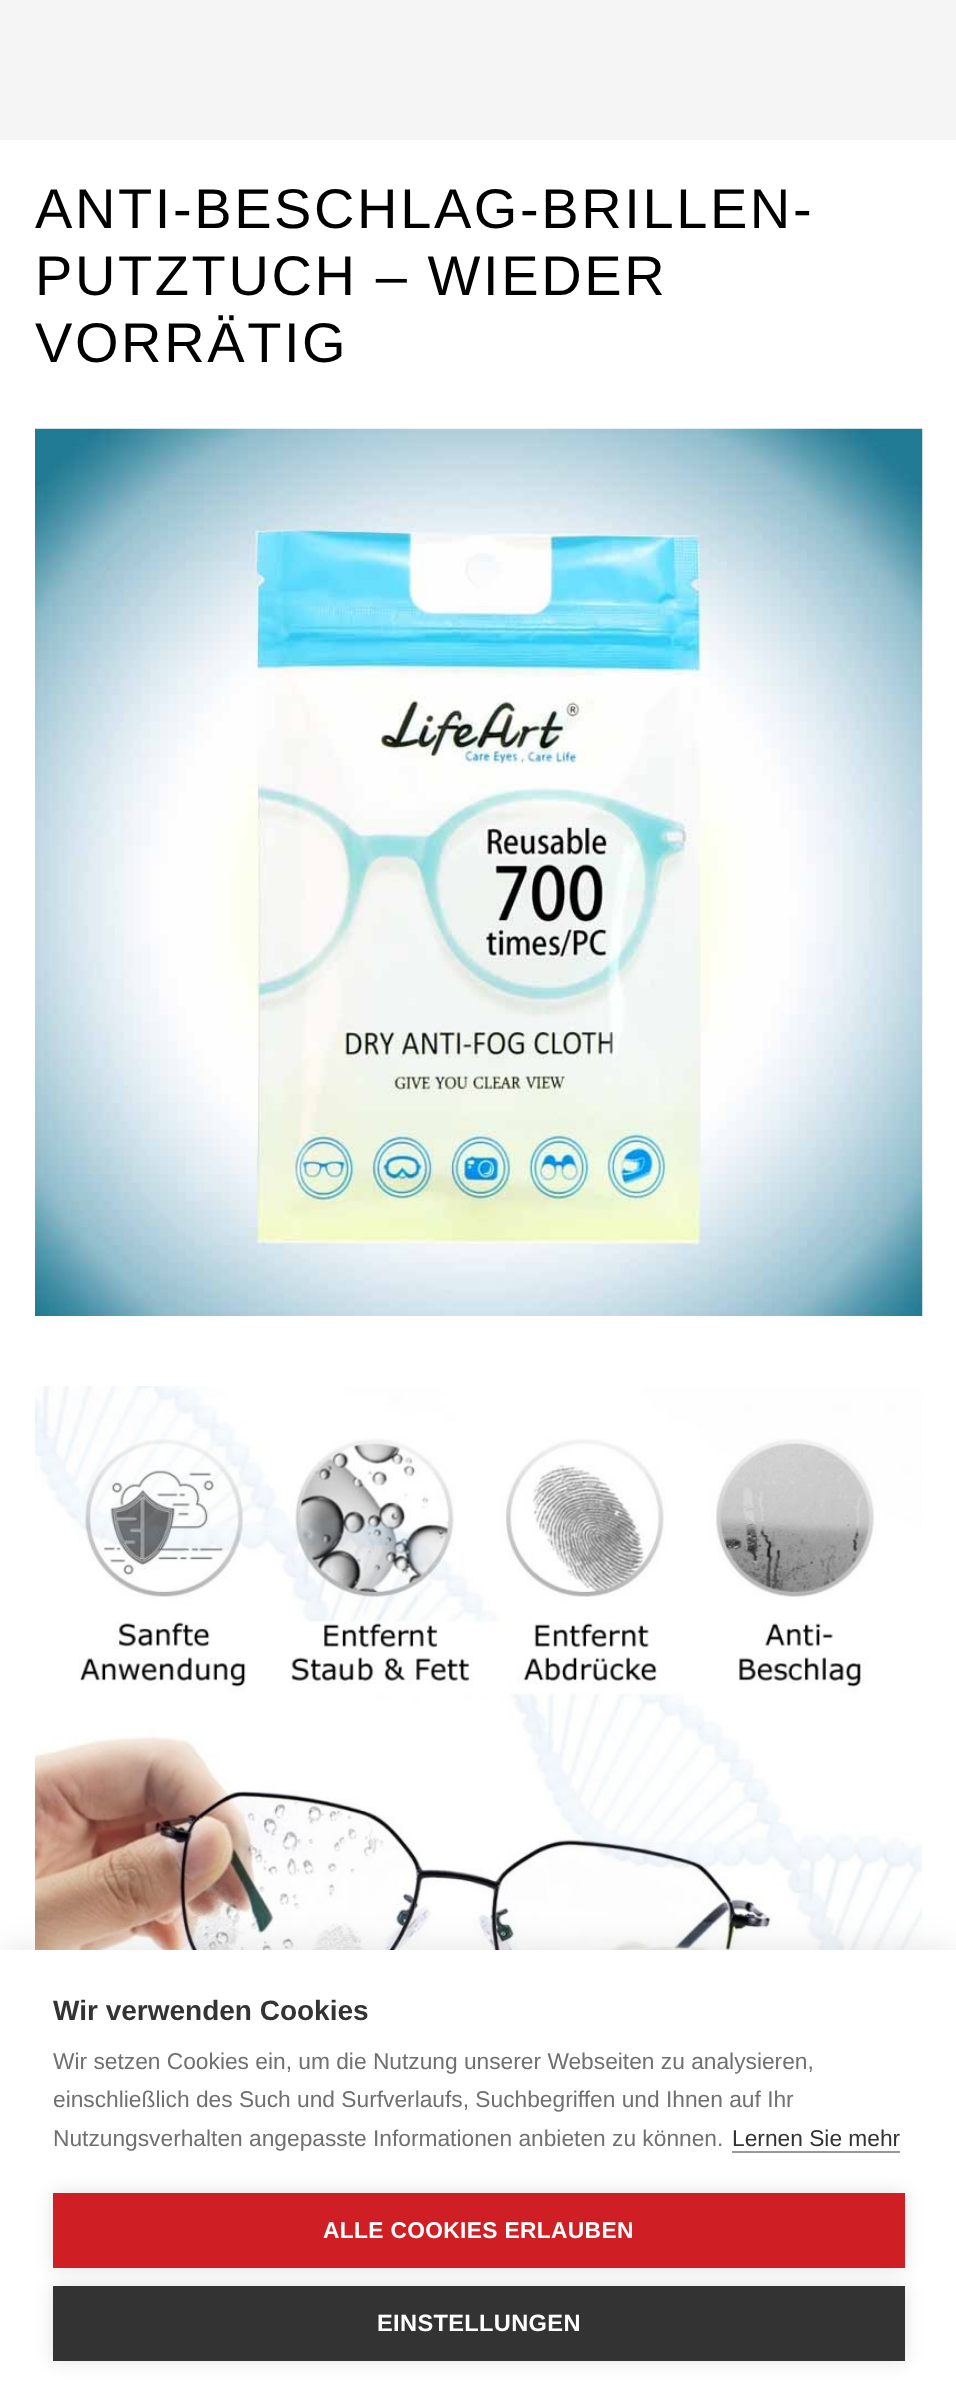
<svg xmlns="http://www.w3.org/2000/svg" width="956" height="2403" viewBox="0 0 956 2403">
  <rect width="100%" height="100%" fill="#fff"/>
  <path d="M0 0h956v140H0z" fill="#f5f5f5"/>
  <image x="35" y="428" width="888" height="888" href="img/1.png"/>
  <image x="35" y="1386" width="888" height="564" href="img/2.png"/>
  <path d="M0 1950h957v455H0z" fill="#0000001a" filter="blur(17.5px)"/>
  <path d="M0 1950h956v453H0z" fill="#fff"/>
  <path d="M732 2151h168v2H732z" fill="#999"/>
  <path d="M53 2193h852v75H53z" fill="#0000001f" filter="blur(9px)"/>
  <path d="M53 2193h852v75H53z" fill="#cf1f25"/>
  <path d="M53 2286h852v75H53z" fill="#0000001f" filter="blur(9px)"/>
  <path d="M53 2286h852v75H53z" fill="#333"/>
  <g font-family="Liberation Sans" font-size="56" letter-spacing="2.6" fill="#000">
    <text x="35" y="228">ANTI-BESCHLAG-BRILLEN-</text>
    <text x="35" y="295">PUTZTUCH – WIEDER</text>
    <text x="35" y="362">VORRÄTIG</text>
  </g>
  <text x="53" y="2020" font-family="Liberation Sans" font-size="28" font-weight="bold" fill="#333">Wir verwenden Cookies</text>
  <g font-family="Liberation Sans" font-size="22.75" fill="#707070">
    <text x="53" y="2069">Wir setzen Cookies ein, um die Nutzung unserer Webseiten zu analysieren,</text>
    <text x="53" y="2107">einschließlich des Such und Surfverlaufs, Suchbegriffen und Ihnen auf Ihr</text>
    <text x="53" y="2146">Nutzungsverhalten angepasste Informationen anbieten zu können.</text>
  </g>
  <text x="732" y="2146" font-family="Liberation Sans" font-size="22.75" fill="#333">Lernen Sie mehr</text>
  <text x="323" y="2238" font-family="Liberation Sans" font-size="22.75" font-weight="bold" letter-spacing="0.35" fill="#fff">ALLE COOKIES ERLAUBEN</text>
  <text x="377" y="2331" font-family="Liberation Sans" font-size="23.6" font-weight="bold" letter-spacing="0.35" fill="#fff">EINSTELLUNGEN</text>
</svg>
